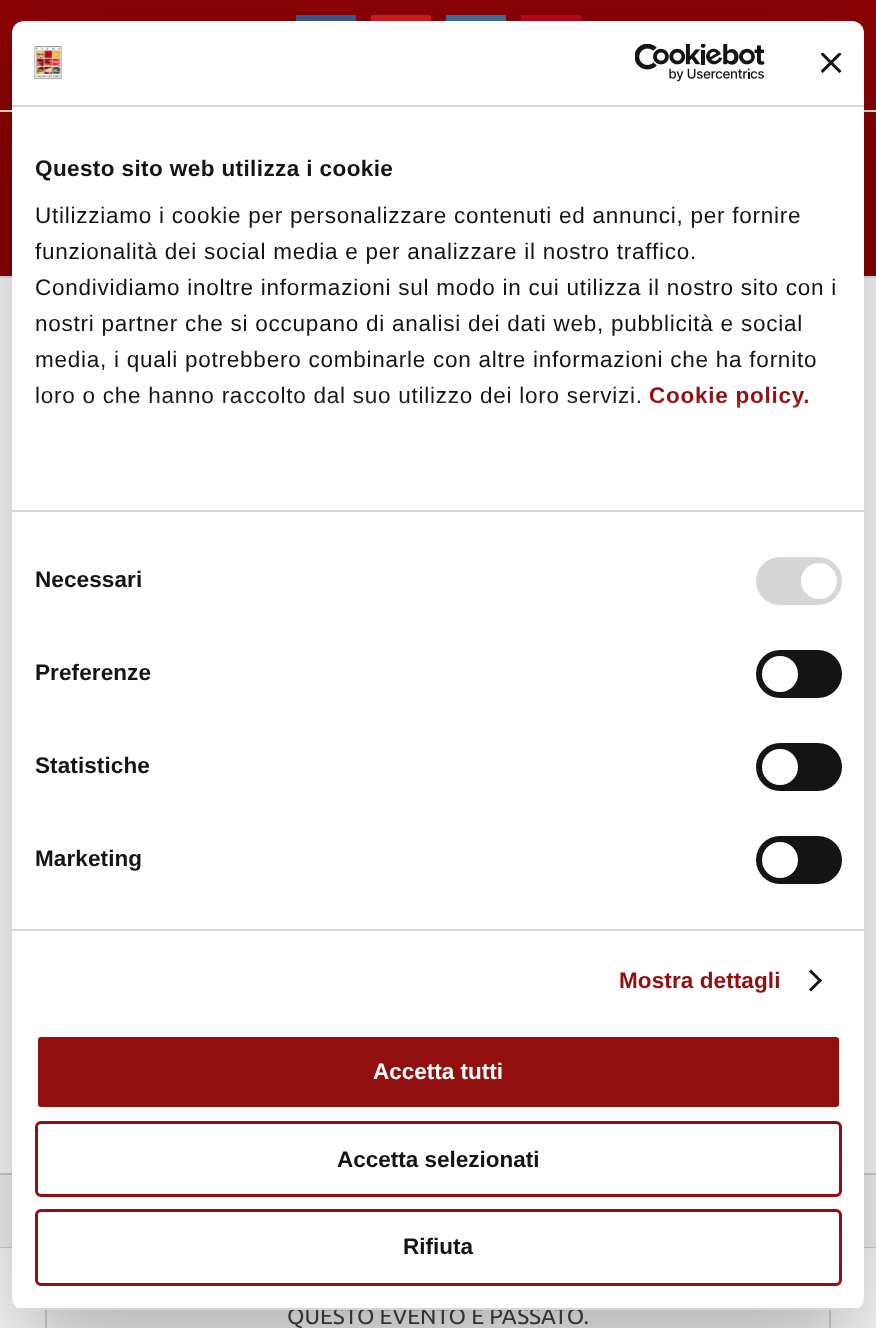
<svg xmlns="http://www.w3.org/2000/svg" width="876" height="1328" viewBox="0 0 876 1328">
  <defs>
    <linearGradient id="g1" gradientUnits="userSpaceOnUse" x1="428" y1="510" x2="428" y2="397"><stop offset="0" stop-color="#fff"/><stop offset="0.5" stop-color="#fff" stop-opacity="0.8"/><stop offset="1" stop-color="#fff" stop-opacity="0"/></linearGradient>
    <clipPath id="clip1"><rect x="12" y="21" width="852" height="1289" rx="12"/></clipPath>
  </defs>
  <rect width="100%" height="100%" fill="#fff"/>
  <path d="M0 0h876v276H0z" fill="#8b0305"/>
  <path d="M0 276h876v2H0z" fill="#e5e5e5"/>
  <path d="M0 110h876v2H0z" fill="#e5e5e5"/>
  <path d="M296 15h60v6H296z" fill="#3b5998"/>
  <path d="M371 15h60v6H371z" fill="#cd201f"/>
  <path d="M446 15h60v6H446z" fill="#3f729b"/>
  <path d="M521 15h60v6H521z" fill="#bd081c"/>
  <path d="M0 1175h876v72H0z" fill="#f6f6f6"/>
  <path d="M0 1173h876v2H0z" fill="#d2d3d4"/>
  <path d="M0 1247h876v1H0z" fill="#d2d3d4"/>
  <path d="M46 1260h784v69H46z" fill="none" stroke="#d7d6d6" stroke-width="2"/>
  <rect x="12" y="69" width="852" height="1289" rx="12" fill="#0000004d" filter="blur(51px)"/>
  <text x="287" y="1324" font-family="Ubuntu" font-size="22.5" fill="#333">QUESTO EVENTO È PASSATO.</text>
  <rect x="12" y="21" width="852" height="1289" rx="12" fill="#fff"/>
  <text x="649" y="403" font-family="Liberation Sans" font-size="22.5" font-weight="bold" letter-spacing="0.75" fill="#910f0f">Cookie policy.</text>
  <text x="35" y="403" font-family="Liberation Sans" font-size="22.5" letter-spacing="0.75" fill="#141414">loro o che hanno raccolto dal suo utilizzo dei loro servizi.</text>
  <path d="M36 399h773v9H36z" fill="url(#g1)"/>
  <rect x="36.5" y="1210.5" width="804" height="74" rx="4.5" fill="none" stroke="#910f0f" stroke-width="3"/>
  <text x="403" y="1254" font-family="Liberation Sans" font-size="22.5" font-weight="bold" fill="#141414">Rifiuta</text>
  <rect x="36.5" y="1122.5" width="804" height="73" rx="4.5" fill="none" stroke="#910f0f" stroke-width="3"/>
  <text x="337" y="1167" font-family="Liberation Sans" font-size="22.5" font-weight="bold" fill="#141414">Accetta selezionati</text>
  <rect x="36.5" y="1035.5" width="804" height="73" rx="4.5" fill="#910f0f" stroke="#fff" stroke-width="3"/>
  <text x="373" y="1079" font-family="Liberation Sans" font-size="22.5" font-weight="bold" fill="#fff">Accetta tutti</text>
  <g clip-path="url(#clip1)">
    <path d="M12 1308h852v2H12z" fill="#d6d6d6"/>
  </g>
  <path d="M811 969.5L822 980.5L820 982.5L809 971.5Z" fill="#141414"/>
  <path d="M820 978.5L822 980.5L811 991.5L809 989.5Z" fill="#141414"/>
  <rect x="756" y="836" width="86" height="48" rx="24" fill="#141414"/>
  <circle cx="780" cy="860" r="18" fill="#fff"/>
  <rect x="756" y="743" width="86" height="48" rx="24" fill="#141414"/>
  <circle cx="780" cy="767" r="18" fill="#fff"/>
  <rect x="756" y="650" width="86" height="48" rx="24" fill="#141414"/>
  <circle cx="780" cy="674" r="18" fill="#fff"/>
  <rect x="756" y="557" width="86" height="48" rx="24" fill="#d6d6d6"/>
  <circle cx="819" cy="581" r="18" fill="#fff"/>
  <g font-family="Liberation Sans" font-size="22.5" letter-spacing="0.75" fill="#141414">
    <text x="35" y="367">media, i quali potrebbero combinarle con altre informazioni che ha fornito</text>
    <text x="35" y="331">nostri partner che si occupano di analisi dei dati web, pubblicità e social</text>
    <text x="35" y="295">Condividiamo inoltre informazioni sul modo in cui utilizza il nostro sito con i</text>
    <text x="35" y="259">funzionalità dei social media e per analizzare il nostro traffico.</text>
    <text x="35" y="223">Utilizziamo i cookie per personalizzare contenuti ed annunci, per fornire</text>
  </g>
  <text x="35" y="176" font-family="Liberation Sans" font-size="22.5" font-weight="bold" letter-spacing="0.4" fill="#141414">Questo sito web utilizza i cookie</text>
  <path d="M12 510h852v2H12z" fill="#d6d6d6"/>
  <text x="619" y="988" font-family="Liberation Sans" font-size="22.5" font-weight="bold" letter-spacing="0.1" fill="#910f0f">Mostra dettagli</text>
  <g font-family="Liberation Sans" font-size="22.5" font-weight="bold" letter-spacing="0.1" fill="#141414">
    <text x="35" y="866">Marketing</text>
    <text x="35" y="773">Statistiche</text>
    <text x="35" y="680">Preferenze</text>
    <text x="35" y="587">Necessari</text>
  </g>
  <path d="M12 929h852v2H12z" fill="#d6d6d6"/>
  <image x="821" y="53" width="21" height="20" href="img/3.png"/>
  <image x="635" y="44" width="130" height="38" href="img/2.png"/>
  <image x="34" y="46" width="28" height="34" href="img/1.png"/>
  <path d="M12 105h852v2H12z" fill="#d6d6d6"/>
</svg>
